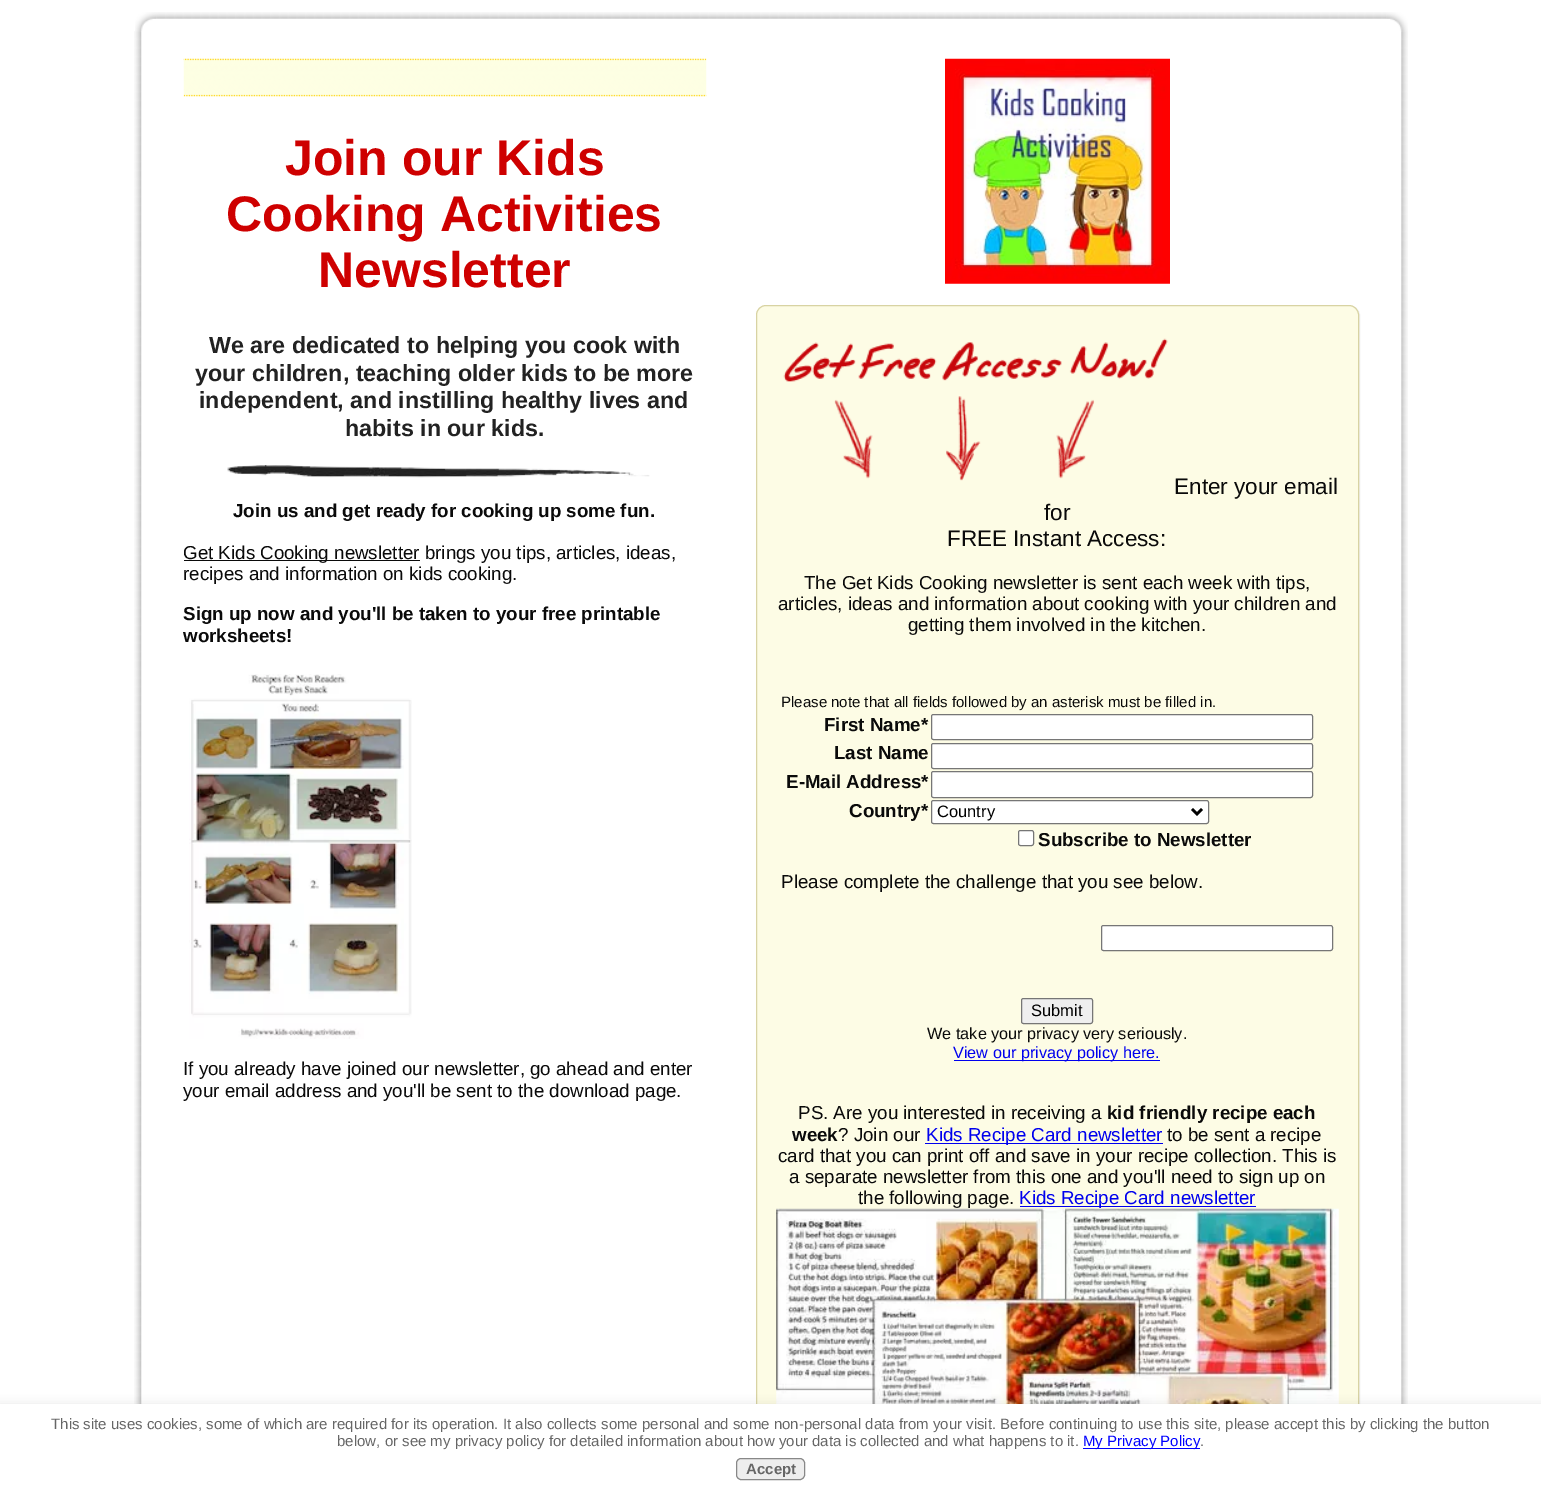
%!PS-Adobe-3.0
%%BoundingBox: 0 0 1541 1491
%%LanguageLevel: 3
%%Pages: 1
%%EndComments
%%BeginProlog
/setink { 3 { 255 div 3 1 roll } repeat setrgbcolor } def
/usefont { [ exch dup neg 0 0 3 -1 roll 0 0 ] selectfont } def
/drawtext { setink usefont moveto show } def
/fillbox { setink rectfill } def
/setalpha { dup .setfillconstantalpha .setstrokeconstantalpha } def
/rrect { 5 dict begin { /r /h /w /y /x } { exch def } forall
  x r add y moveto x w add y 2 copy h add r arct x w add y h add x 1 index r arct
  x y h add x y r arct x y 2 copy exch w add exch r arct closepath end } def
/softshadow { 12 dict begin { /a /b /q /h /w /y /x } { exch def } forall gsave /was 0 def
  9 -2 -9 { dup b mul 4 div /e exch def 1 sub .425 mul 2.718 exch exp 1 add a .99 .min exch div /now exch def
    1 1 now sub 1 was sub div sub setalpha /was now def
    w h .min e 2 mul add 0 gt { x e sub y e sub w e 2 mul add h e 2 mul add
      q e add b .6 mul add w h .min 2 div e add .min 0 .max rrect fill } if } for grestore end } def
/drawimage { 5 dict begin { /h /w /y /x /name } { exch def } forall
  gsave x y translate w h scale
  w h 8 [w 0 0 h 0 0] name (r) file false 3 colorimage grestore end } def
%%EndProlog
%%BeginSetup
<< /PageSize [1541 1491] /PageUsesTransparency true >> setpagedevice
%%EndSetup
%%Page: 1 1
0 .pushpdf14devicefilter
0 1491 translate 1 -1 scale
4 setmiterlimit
0 0 1541 1491 255 255 255 fillbox
(assets/img1.rgb) 135 12 22 20 drawimage
(assets/img2.rgb) 156 12 1231 7 drawimage
(assets/img3.rgb) 1386 12 22 20 drawimage
(assets/img4.rgb) 134 31 8 1373 drawimage
(assets/img5.rgb) 183 58 524 39 drawimage
(Join our Kids) 285 175 /LiberationSans-Bold 50 206 0 0 drawtext
(Cooking Activities) 226 231 /LiberationSans-Bold 50 206 0 0 drawtext
(Newsletter) 318 287 /LiberationSans-Bold 50 206 0 0 drawtext
(We are dedicated to helping you cook with) 209 353 /LiberationSans-Bold 23.3 34 34 34 drawtext
(your children, teaching older kids to be more) 195 381 /LiberationSans-Bold 23.3 34 34 34 drawtext
(independent, and instilling healthy lives and) 199 408 /LiberationSans-Bold 23.3 34 34 34 drawtext
(habits in our kids.) 345 436 /LiberationSans-Bold 23.3 34 34 34 drawtext
(assets/img6.rgb) 227 465 423 13 drawimage
(Join us and get ready for cooking up some fun.) 233 517 /LiberationSans-Bold 18.75 10 10 10 drawtext
184 560 236 1 10 10 10 fillbox
(Get Kids Cooking newsletter brings you tips, articles, ideas,) 183 559 /LiberationSans-Regular 18.75 10 10 10 drawtext
(recipes and information on kids cooking.) 183 580 /LiberationSans-Regular 18.75 10 10 10 drawtext
(Sign up now and you'll be taken to your free printable) 183 620 /LiberationSans-Bold 18.75 10 10 10 drawtext
(worksheets!) 183 642 /LiberationSans-Bold 18.75 10 10 10 drawtext
(assets/img7.rgb) 189 674 223 365 drawimage
(If you already have joined our newsletter, go ahead and enter) 183 1075 /LiberationSans-Regular 18.75 10 10 10 drawtext
(your email address and you'll be sent to the download page.) 183 1097 /LiberationSans-Regular 18.75 10 10 10 drawtext
(assets/img8.rgb) 945 58 225 226 drawimage
238 238 238 setink
758 306 602 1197 10 0.5 1 softshadow
253 252 229 setink
756.5 305.5 602 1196 9.5 rrect gsave fill grestore
216 211 163 setink
stroke
(assets/img9.rgb) 783 338 385 143 drawimage
(Enter your email) 1174 494 /LiberationSans-Regular 22.5 10 10 10 drawtext
(for) 1044 520 /LiberationSans-Regular 22.5 10 10 10 drawtext
(FREE Instant Access:) 947 546 /LiberationSans-Regular 22.5 10 10 10 drawtext
(The Get Kids Cooking newsletter is sent each week with tips,) 804 589 /LiberationSans-Regular 18.75 10 10 10 drawtext
(articles, ideas and information about cooking with your children and) 778 610 /LiberationSans-Regular 18.75 10 10 10 drawtext
(getting them involved in the kitchen.) 908 631 /LiberationSans-Regular 18.75 10 10 10 drawtext
(Please note that all fields followed by an asterisk must be filled in.) 781 707 /LiberationSans-Regular 15 10 10 10 drawtext
(First Name*) 824 731 /LiberationSans-Bold 18.75 10 10 10 drawtext
255 255 255 setink
931.5 714.5 381 25 2 rrect gsave fill grestore
118 118 118 setink
stroke
(Last Name) 834 759 /LiberationSans-Bold 18.75 10 10 10 drawtext
255 255 255 setink
931.5 743.5 381 25 2 rrect gsave fill grestore
118 118 118 setink
stroke
(E-Mail Address*) 786 788 /LiberationSans-Bold 18.75 10 10 10 drawtext
255 255 255 setink
931.5 771.5 381 26 2 rrect gsave fill grestore
118 118 118 setink
stroke
(Country*) 849 817 /LiberationSans-Bold 18.75 10 10 10 drawtext
255 255 255 setink
931.5 800.5 277 23 2 rrect gsave fill grestore
118 118 118 setink
stroke
0 0 0 setink
2.5 setlinewidth
1192 809 moveto 1197 814 lineto 1202 809 lineto stroke
(Country) 937 817 /LiberationSans-Regular 16.5 0 0 0 drawtext
255 255 255 setink
1018.5 830.5 15 15 2 rrect gsave fill grestore
118 118 118 setink
1 setlinewidth
stroke
(Subscribe to Newsletter) 1038 846 /LiberationSans-Bold 18.75 10 10 10 drawtext
(Please complete the challenge that you see below.) 781 888 /LiberationSans-Regular 18.75 10 10 10 drawtext
255 255 255 setink
1101.5 925.5 231 25 2 rrect gsave fill grestore
118 118 118 setink
stroke
239 239 239 setink
1021.5 998.5 71 25 2 rrect gsave fill grestore
118 118 118 setink
stroke
(Submit) 1031 1016 /LiberationSans-Regular 16.5 0 0 0 drawtext
(We take your privacy very seriously.) 927 1039 /LiberationSans-Regular 16.25 10 10 10 drawtext
954 1060 206 1 0 0 238 fillbox
(View our privacy policy here.) 953 1058 /LiberationSans-Regular 16.25 0 0 238 drawtext
(PS. Are you interested in receiving a) 798 1119 /LiberationSans-Regular 18.75 10 10 10 drawtext
(kid friendly recipe each) 1107 1119 /LiberationSans-Bold 18.75 10 10 10 drawtext
(week) 792 1141 /LiberationSans-Bold 18.75 10 10 10 drawtext
(? Join our) 838 1141 /LiberationSans-Regular 18.75 10 10 10 drawtext
925 1143 238 1 0 0 238 fillbox
(Kids Recipe Card newsletter) 926 1141 /LiberationSans-Regular 18.75 0 0 238 drawtext
(to be sent a recipe) 1167 1141 /LiberationSans-Regular 18.75 10 10 10 drawtext
(card that you can print off and save in your recipe collection. This is) 778 1162 /LiberationSans-Regular 18.75 10 10 10 drawtext
(a separate newsletter from this one and you'll need to sign up on) 789 1183 /LiberationSans-Regular 18.75 10 10 10 drawtext
(the following page.) 858 1204 /LiberationSans-Regular 18.75 10 10 10 drawtext
1020 1206 236 1 0 0 238 fillbox
(Kids Recipe Card newsletter) 1019 1204 /LiberationSans-Regular 18.75 0 0 238 drawtext
(assets/img10.rgb) 776 1208 563 196 drawimage
(assets/img11.rgb) 1401 31 7 1373 drawimage
0 0 0 setink
-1 1408 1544 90 0 6 0.2 softshadow
0 1404 1541 87 255 255 255 fillbox
(This site uses cookies, some of which are required for its operation. It also collects some personal and some non-personal data from your visit. Before continuing to use this site, please accept this by clicking the button) 51 1429 /LiberationSans-Regular 15 102 102 102 drawtext
(below, or see my privacy policy for detailed information about how your data is collected and what happens to it.) 337 1446 /LiberationSans-Regular 15 102 102 102 drawtext
1083 1448 117 1 0 0 255 fillbox
(My Privacy Policy) 1083 1446 /LiberationSans-Regular 15 0 0 255 drawtext
(.) 1200 1446 /LiberationSans-Regular 15 102 102 102 drawtext
238 238 238 setink
736.5 1458.5 68 21 4.5 rrect gsave fill grestore
136 136 136 setink
stroke
(Accept) 746 1474 /LiberationSans-Bold 15 102 102 102 drawtext
.poppdf14devicefilter showpage
%%EOF
